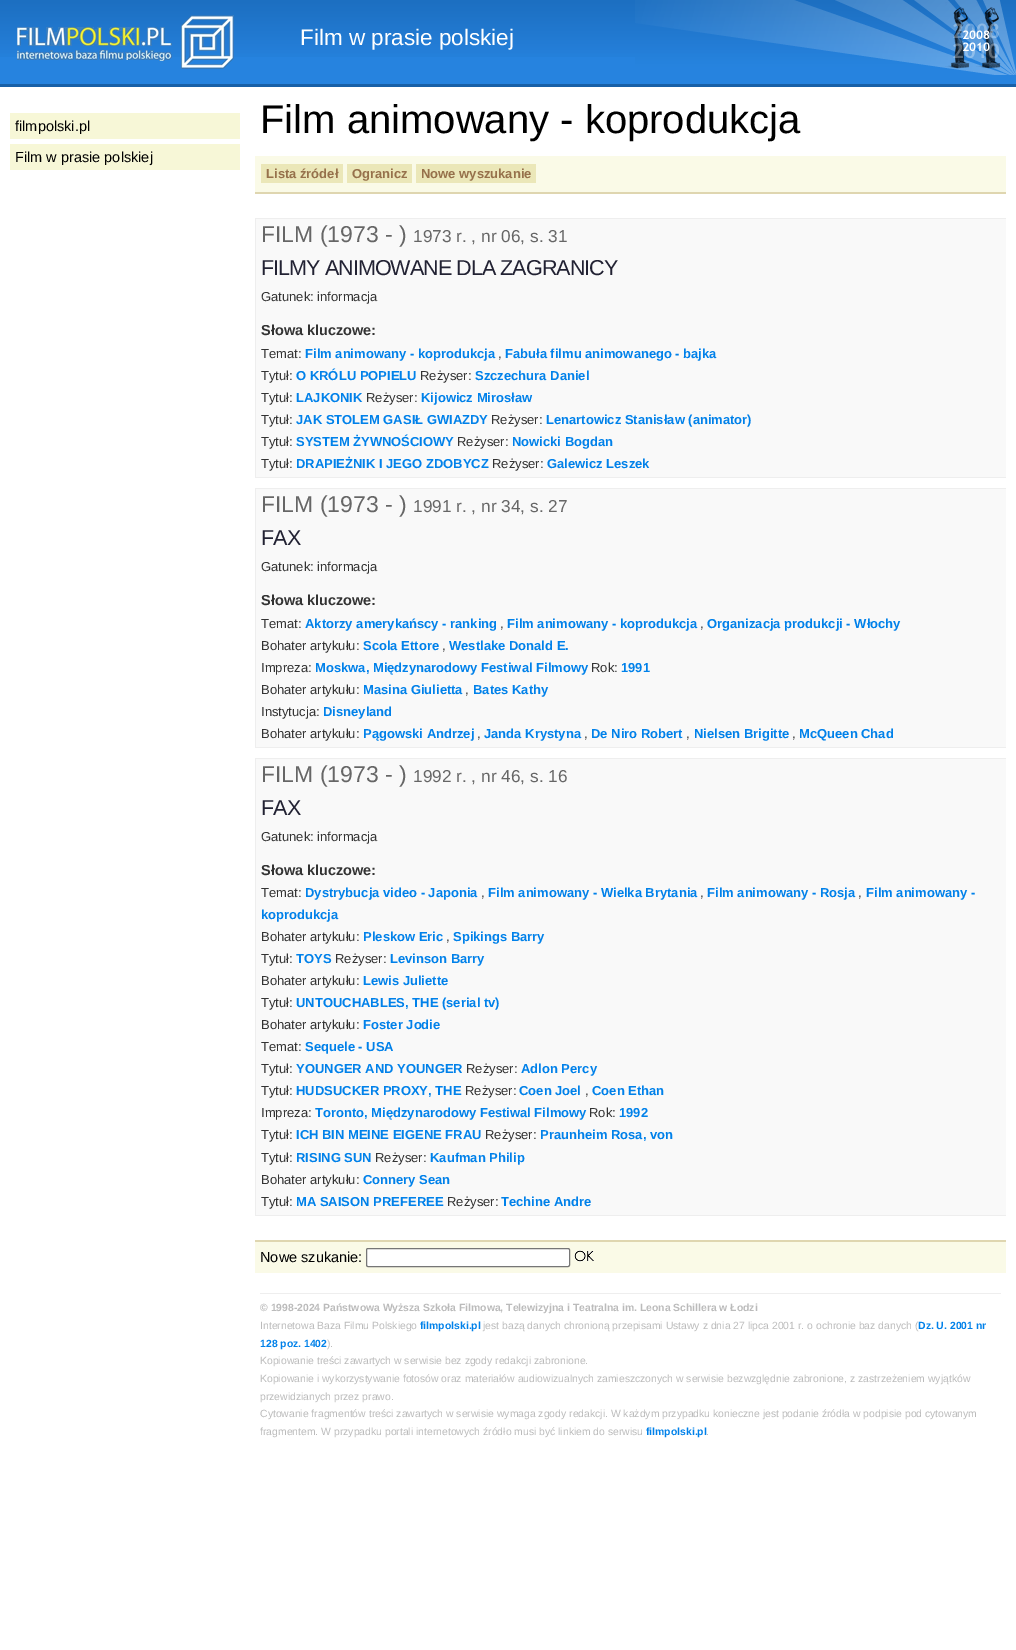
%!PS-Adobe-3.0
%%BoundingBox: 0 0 1016 1650
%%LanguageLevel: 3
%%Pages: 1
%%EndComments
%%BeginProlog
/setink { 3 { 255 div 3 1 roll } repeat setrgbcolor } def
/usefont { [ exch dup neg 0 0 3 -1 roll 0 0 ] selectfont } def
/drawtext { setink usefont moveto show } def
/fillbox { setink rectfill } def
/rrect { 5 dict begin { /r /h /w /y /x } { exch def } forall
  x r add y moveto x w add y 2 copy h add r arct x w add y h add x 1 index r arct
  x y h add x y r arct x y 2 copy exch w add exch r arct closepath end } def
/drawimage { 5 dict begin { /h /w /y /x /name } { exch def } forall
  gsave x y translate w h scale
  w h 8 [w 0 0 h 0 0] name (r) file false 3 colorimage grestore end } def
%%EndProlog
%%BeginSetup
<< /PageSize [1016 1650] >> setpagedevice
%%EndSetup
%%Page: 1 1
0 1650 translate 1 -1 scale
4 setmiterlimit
0 0 1016 1650 255 255 255 fillbox
0 57 1016 27 38 131 223 fillbox
(assets/img1.rgb) 0 0 635 57 drawimage
(assets/img2.rgb) 635 0 381 75 drawimage
(assets/img3.rgb) 17 15 217 54 drawimage
(Film w prasie polskiej) 300 45 /LiberationSans-Regular 22.5 255 255 255 drawtext
10 113 230 26 247 247 215 fillbox
(filmpolski.pl) 15 131 /LiberationSans-Regular 14.5 0 0 0 drawtext
10 144 230 26 247 247 215 fillbox
(Film w prasie polskiej) 15 162 /LiberationSans-Regular 14.5 0 0 0 drawtext
0 84 1016 3 24 96 167 fillbox
(Film animowany - koprodukcja) 260 133 /LiberationSans-Regular 40 0 0 0 drawtext
255 156 751 36 250 250 231 fillbox
255 192 751 2 223 214 176 fillbox
261 164 82 19 235 231 184 fillbox
(Lista źródeł) 266 178 /LiberationSans-Bold 13 150 113 75 drawtext
347 164 65 19 235 231 184 fillbox
(Ogranicz) 352 178 /LiberationSans-Bold 13 150 113 75 drawtext
416 164 120 19 235 231 184 fillbox
(Nowe wyszukanie) 421 178 /LiberationSans-Bold 13 150 113 75 drawtext
256 219 750 258 249 249 249 fillbox
255 218 751 1 238 238 238 fillbox
255 477 751 1 238 238 238 fillbox
255 218 1 260 238 238 238 fillbox
(FILM \(1973 - \)) 261 242 /LiberationSans-Regular 23 102 102 102 drawtext
(1973 r. , nr 06, s. 31) 413 242 /LiberationSans-Regular 17.25 102 102 102 drawtext
/LiberationSans-Regular 21.6 usefont
34 34 51 setink
261 275 moveto -1 0 (FILMY ANIMOWANE DLA ZAGRANICY) ashow
(Gatunek: informacja) 261 301 /LiberationSans-Regular 13 51 51 51 drawtext
(Słowa kluczowe:) 261 335 /LiberationSans-Bold 14.5 51 51 51 drawtext
(Temat:) 261 358 /LiberationSans-Regular 13 51 51 51 drawtext
(Film animowany - koprodukcja) 305 358 /LiberationSans-Bold 13 0 129 234 drawtext
(,) 498 358 /LiberationSans-Regular 13 51 51 51 drawtext
(Fabuła filmu animowanego - bajka) 505 358 /LiberationSans-Bold 13 0 129 234 drawtext
(Tytuł:) 261 380 /LiberationSans-Regular 13 51 51 51 drawtext
(O KRÓLU POPIELU) 296 380 /LiberationSans-Bold 13 0 129 234 drawtext
(Reżyser:) 420 380 /LiberationSans-Regular 13 51 51 51 drawtext
(Szczechura Daniel) 475 380 /LiberationSans-Bold 13 0 129 234 drawtext
(Tytuł:) 261 402 /LiberationSans-Regular 13 51 51 51 drawtext
(LAJKONIK) 296 402 /LiberationSans-Bold 13 0 129 234 drawtext
(Reżyser:) 366 402 /LiberationSans-Regular 13 51 51 51 drawtext
(Kijowicz Mirosław) 421 402 /LiberationSans-Bold 13 0 129 234 drawtext
(Tytuł:) 261 424 /LiberationSans-Regular 13 51 51 51 drawtext
(JAK STOLEM GASIŁ GWIAZDY) 296 424 /LiberationSans-Bold 13 0 129 234 drawtext
(Reżyser:) 491 424 /LiberationSans-Regular 13 51 51 51 drawtext
(Lenartowicz Stanisław \(animator\)) 546 424 /LiberationSans-Bold 13 0 129 234 drawtext
(Tytuł:) 261 446 /LiberationSans-Regular 13 51 51 51 drawtext
(SYSTEM ŻYWNOŚCIOWY) 296 446 /LiberationSans-Bold 13 0 129 234 drawtext
(Reżyser:) 457 446 /LiberationSans-Regular 13 51 51 51 drawtext
(Nowicki Bogdan) 512 446 /LiberationSans-Bold 13 0 129 234 drawtext
(Tytuł:) 261 468 /LiberationSans-Regular 13 51 51 51 drawtext
(DRAPIEŻNIK I JEGO ZDOBYCZ) 296 468 /LiberationSans-Bold 13 0 129 234 drawtext
(Reżyser:) 492 468 /LiberationSans-Regular 13 51 51 51 drawtext
(Galewicz Leszek) 547 468 /LiberationSans-Bold 13 0 129 234 drawtext
256 489 750 258 249 249 249 fillbox
255 488 751 1 238 238 238 fillbox
255 747 751 1 238 238 238 fillbox
255 488 1 260 238 238 238 fillbox
(FILM \(1973 - \)) 261 512 /LiberationSans-Regular 23 102 102 102 drawtext
(1991 r. , nr 34, s. 27) 413 512 /LiberationSans-Regular 17.25 102 102 102 drawtext
/LiberationSans-Regular 21.6 usefont
34 34 51 setink
261 545 moveto -1 0 (FAX) ashow
(Gatunek: informacja) 261 571 /LiberationSans-Regular 13 51 51 51 drawtext
(Słowa kluczowe:) 261 605 /LiberationSans-Bold 14.5 51 51 51 drawtext
(Temat:) 261 628 /LiberationSans-Regular 13 51 51 51 drawtext
(Aktorzy amerykańscy - ranking) 305 628 /LiberationSans-Bold 13 0 129 234 drawtext
(,) 500 628 /LiberationSans-Regular 13 51 51 51 drawtext
(Film animowany - koprodukcja) 507 628 /LiberationSans-Bold 13 0 129 234 drawtext
(,) 700 628 /LiberationSans-Regular 13 51 51 51 drawtext
(Organizacja produkcji - Włochy) 707 628 /LiberationSans-Bold 13 0 129 234 drawtext
(Bohater artykułu:) 261 650 /LiberationSans-Regular 13 51 51 51 drawtext
(Scola Ettore) 363 650 /LiberationSans-Bold 13 0 129 234 drawtext
(,) 442 650 /LiberationSans-Regular 13 51 51 51 drawtext
(Westlake Donald E.) 449 650 /LiberationSans-Bold 13 0 129 234 drawtext
(Impreza:) 261 672 /LiberationSans-Regular 13 51 51 51 drawtext
(Moskwa, Międzynarodowy Festiwal Filmowy) 315 672 /LiberationSans-Bold 13 0 129 234 drawtext
(Rok:) 591 672 /LiberationSans-Regular 13 51 51 51 drawtext
(1991) 621 672 /LiberationSans-Bold 13 0 129 234 drawtext
(Bohater artykułu:) 261 694 /LiberationSans-Regular 13 51 51 51 drawtext
(Masina Giulietta) 363 694 /LiberationSans-Bold 13 0 129 234 drawtext
(,) 465 694 /LiberationSans-Regular 13 51 51 51 drawtext
(Bates Kathy) 473 694 /LiberationSans-Bold 13 0 129 234 drawtext
(Instytucja:) 261 716 /LiberationSans-Regular 13 51 51 51 drawtext
(Disneyland) 323 716 /LiberationSans-Bold 13 0 129 234 drawtext
(Bohater artykułu:) 261 738 /LiberationSans-Regular 13 51 51 51 drawtext
(Pągowski Andrzej) 363 738 /LiberationSans-Bold 13 0 129 234 drawtext
(,) 477 738 /LiberationSans-Regular 13 51 51 51 drawtext
(Janda Krystyna) 484 738 /LiberationSans-Bold 13 0 129 234 drawtext
(,) 584 738 /LiberationSans-Regular 13 51 51 51 drawtext
(De Niro Robert) 591 738 /LiberationSans-Bold 13 0 129 234 drawtext
(,) 686 738 /LiberationSans-Regular 13 51 51 51 drawtext
(Nielsen Brigitte) 694 738 /LiberationSans-Bold 13 0 129 234 drawtext
(,) 792 738 /LiberationSans-Regular 13 51 51 51 drawtext
(McQueen Chad) 799 738 /LiberationSans-Bold 13 0 129 234 drawtext
256 759 750 456 249 249 249 fillbox
255 758 751 1 238 238 238 fillbox
255 1215 751 1 238 238 238 fillbox
255 758 1 458 238 238 238 fillbox
(FILM \(1973 - \)) 261 782 /LiberationSans-Regular 23 102 102 102 drawtext
(1992 r. , nr 46, s. 16) 413 782 /LiberationSans-Regular 17.25 102 102 102 drawtext
/LiberationSans-Regular 21.6 usefont
34 34 51 setink
261 815 moveto -1 0 (FAX) ashow
(Gatunek: informacja) 261 841 /LiberationSans-Regular 13 51 51 51 drawtext
(Słowa kluczowe:) 261 875 /LiberationSans-Bold 14.5 51 51 51 drawtext
(Temat:) 261 897 /LiberationSans-Regular 13 51 51 51 drawtext
(Dystrybucja video - Japonia) 305 897 /LiberationSans-Bold 13 0 129 234 drawtext
(,) 481 897 /LiberationSans-Regular 13 51 51 51 drawtext
(Film animowany - Wielka Brytania) 488 897 /LiberationSans-Bold 13 0 129 234 drawtext
(,) 700 897 /LiberationSans-Regular 13 51 51 51 drawtext
(Film animowany - Rosja) 707 897 /LiberationSans-Bold 13 0 129 234 drawtext
(,) 858 897 /LiberationSans-Regular 13 51 51 51 drawtext
(Film animowany -) 866 897 /LiberationSans-Bold 13 0 129 234 drawtext
(koprodukcja) 261 919 /LiberationSans-Bold 13 0 129 234 drawtext
(Bohater artykułu:) 261 941 /LiberationSans-Regular 13 51 51 51 drawtext
(Pleskow Eric) 363 941 /LiberationSans-Bold 13 0 129 234 drawtext
(,) 446 941 /LiberationSans-Regular 13 51 51 51 drawtext
(Spikings Barry) 453 941 /LiberationSans-Bold 13 0 129 234 drawtext
(Tytuł:) 261 963 /LiberationSans-Regular 13 51 51 51 drawtext
(TOYS) 296 963 /LiberationSans-Bold 13 0 129 234 drawtext
(Reżyser:) 335 963 /LiberationSans-Regular 13 51 51 51 drawtext
(Levinson Barry) 390 963 /LiberationSans-Bold 13 0 129 234 drawtext
(Bohater artykułu:) 261 985 /LiberationSans-Regular 13 51 51 51 drawtext
(Lewis Juliette) 363 985 /LiberationSans-Bold 13 0 129 234 drawtext
(Tytuł:) 261 1007 /LiberationSans-Regular 13 51 51 51 drawtext
(UNTOUCHABLES, THE \(serial tv\)) 296 1007 /LiberationSans-Bold 13 0 129 234 drawtext
(Bohater artykułu:) 261 1029 /LiberationSans-Regular 13 51 51 51 drawtext
(Foster Jodie) 363 1029 /LiberationSans-Bold 13 0 129 234 drawtext
(Temat:) 261 1051 /LiberationSans-Regular 13 51 51 51 drawtext
(Sequele - USA) 305 1051 /LiberationSans-Bold 13 0 129 234 drawtext
(Tytuł:) 261 1073 /LiberationSans-Regular 13 51 51 51 drawtext
(YOUNGER AND YOUNGER) 296 1073 /LiberationSans-Bold 13 0 129 234 drawtext
(Reżyser:) 466 1073 /LiberationSans-Regular 13 51 51 51 drawtext
(Adlon Percy) 521 1073 /LiberationSans-Bold 13 0 129 234 drawtext
(Tytuł:) 261 1095 /LiberationSans-Regular 13 51 51 51 drawtext
(HUDSUCKER PROXY, THE) 296 1095 /LiberationSans-Bold 13 0 129 234 drawtext
(Reżyser:) 465 1095 /LiberationSans-Regular 13 51 51 51 drawtext
(Coen Joel) 519 1095 /LiberationSans-Bold 13 0 129 234 drawtext
(,) 585 1095 /LiberationSans-Regular 13 51 51 51 drawtext
(Coen Ethan) 592 1095 /LiberationSans-Bold 13 0 129 234 drawtext
(Impreza:) 261 1117 /LiberationSans-Regular 13 51 51 51 drawtext
(Toronto, Międzynarodowy Festiwal Filmowy) 315 1117 /LiberationSans-Bold 13 0 129 234 drawtext
(Rok:) 589 1117 /LiberationSans-Regular 13 51 51 51 drawtext
(1992) 619 1117 /LiberationSans-Bold 13 0 129 234 drawtext
(Tytuł:) 261 1139 /LiberationSans-Regular 13 51 51 51 drawtext
(ICH BIN MEINE EIGENE FRAU) 296 1139 /LiberationSans-Bold 13 0 129 234 drawtext
(Reżyser:) 485 1139 /LiberationSans-Regular 13 51 51 51 drawtext
(Praunheim Rosa, von) 540 1139 /LiberationSans-Bold 13 0 129 234 drawtext
(Tytuł:) 261 1162 /LiberationSans-Regular 13 51 51 51 drawtext
(RISING SUN) 296 1162 /LiberationSans-Bold 13 0 129 234 drawtext
(Reżyser:) 375 1162 /LiberationSans-Regular 13 51 51 51 drawtext
(Kaufman Philip) 430 1162 /LiberationSans-Bold 13 0 129 234 drawtext
(Bohater artykułu:) 261 1184 /LiberationSans-Regular 13 51 51 51 drawtext
(Connery Sean) 363 1184 /LiberationSans-Bold 13 0 129 234 drawtext
(Tytuł:) 261 1206 /LiberationSans-Regular 13 51 51 51 drawtext
(MA SAISON PREFEREE) 296 1206 /LiberationSans-Bold 13 0 129 234 drawtext
(Reżyser:) 447 1206 /LiberationSans-Regular 13 51 51 51 drawtext
(Techine Andre) 501 1206 /LiberationSans-Bold 13 0 129 234 drawtext
255 1242 751 31 250 250 231 fillbox
255 1240 751 2 223 214 176 fillbox
(Nowe szukanie:) 260 1262 /LiberationSans-Regular 14.5 0 0 0 drawtext
255 255 255 setink
366.5 1248.5 203 18 1.5 rrect gsave fill grestore
118 118 118 setink
stroke
(assets/img4.rgb) 574 1250 20 12 drawimage
260 1293 741 1 238 238 238 fillbox
(© 1998-2024 Państwowa Wyższa Szkoła Filmowa, Telewizyjna i Teatralna im. Leona Schillera w Łodzi) 260 1311 /LiberationSans-Bold 10.4 187 187 187 drawtext
(Internetowa Baza Filmu Polskiego) 260 1329 /LiberationSans-Regular 10.4 187 187 187 drawtext
(filmpolski.pl) 420 1329 /LiberationSans-Bold 10.4 0 129 234 drawtext
(jest bazą danych chronioną przepisami Ustawy z dnia 27 lipca 2001 r. o ochronie baz danych \() 483 1329 /LiberationSans-Regular 10.4 187 187 187 drawtext
(Dz. U. 2001 nr) 918 1329 /LiberationSans-Bold 10.4 0 129 234 drawtext
(128 poz. 1402) 260 1347 /LiberationSans-Bold 10.4 0 129 234 drawtext
(\).) 327 1347 /LiberationSans-Regular 10.4 187 187 187 drawtext
(Kopiowanie treści zawartych w serwisie bez zgody redakcji zabronione.) 260 1364 /LiberationSans-Regular 10.4 187 187 187 drawtext
(Kopiowanie i wykorzystywanie fotosów oraz materiałów audiowizualnych zamieszczonych w serwisie bezwzględnie zabronione, z zastrzeżeniem wyjątków) 260 1382 /LiberationSans-Regular 10.4 187 187 187 drawtext
(przewidzianych przez prawo.) 260 1400 /LiberationSans-Regular 10.4 187 187 187 drawtext
(Cytowanie fragmentów treści zawartych w serwisie wymaga zgody redakcji. W każdym przypadku konieczne jest podanie źródła w podpisie pod cytowanym) 260 1417 /LiberationSans-Regular 10.4 187 187 187 drawtext
(fragmentem. W przypadku portali internetowych źródło musi być linkiem do serwisu) 260 1435 /LiberationSans-Regular 10.4 187 187 187 drawtext
(filmpolski.pl) 646 1435 /LiberationSans-Bold 10.4 0 129 234 drawtext
(.) 706 1435 /LiberationSans-Regular 10.4 187 187 187 drawtext
showpage
%%EOF
